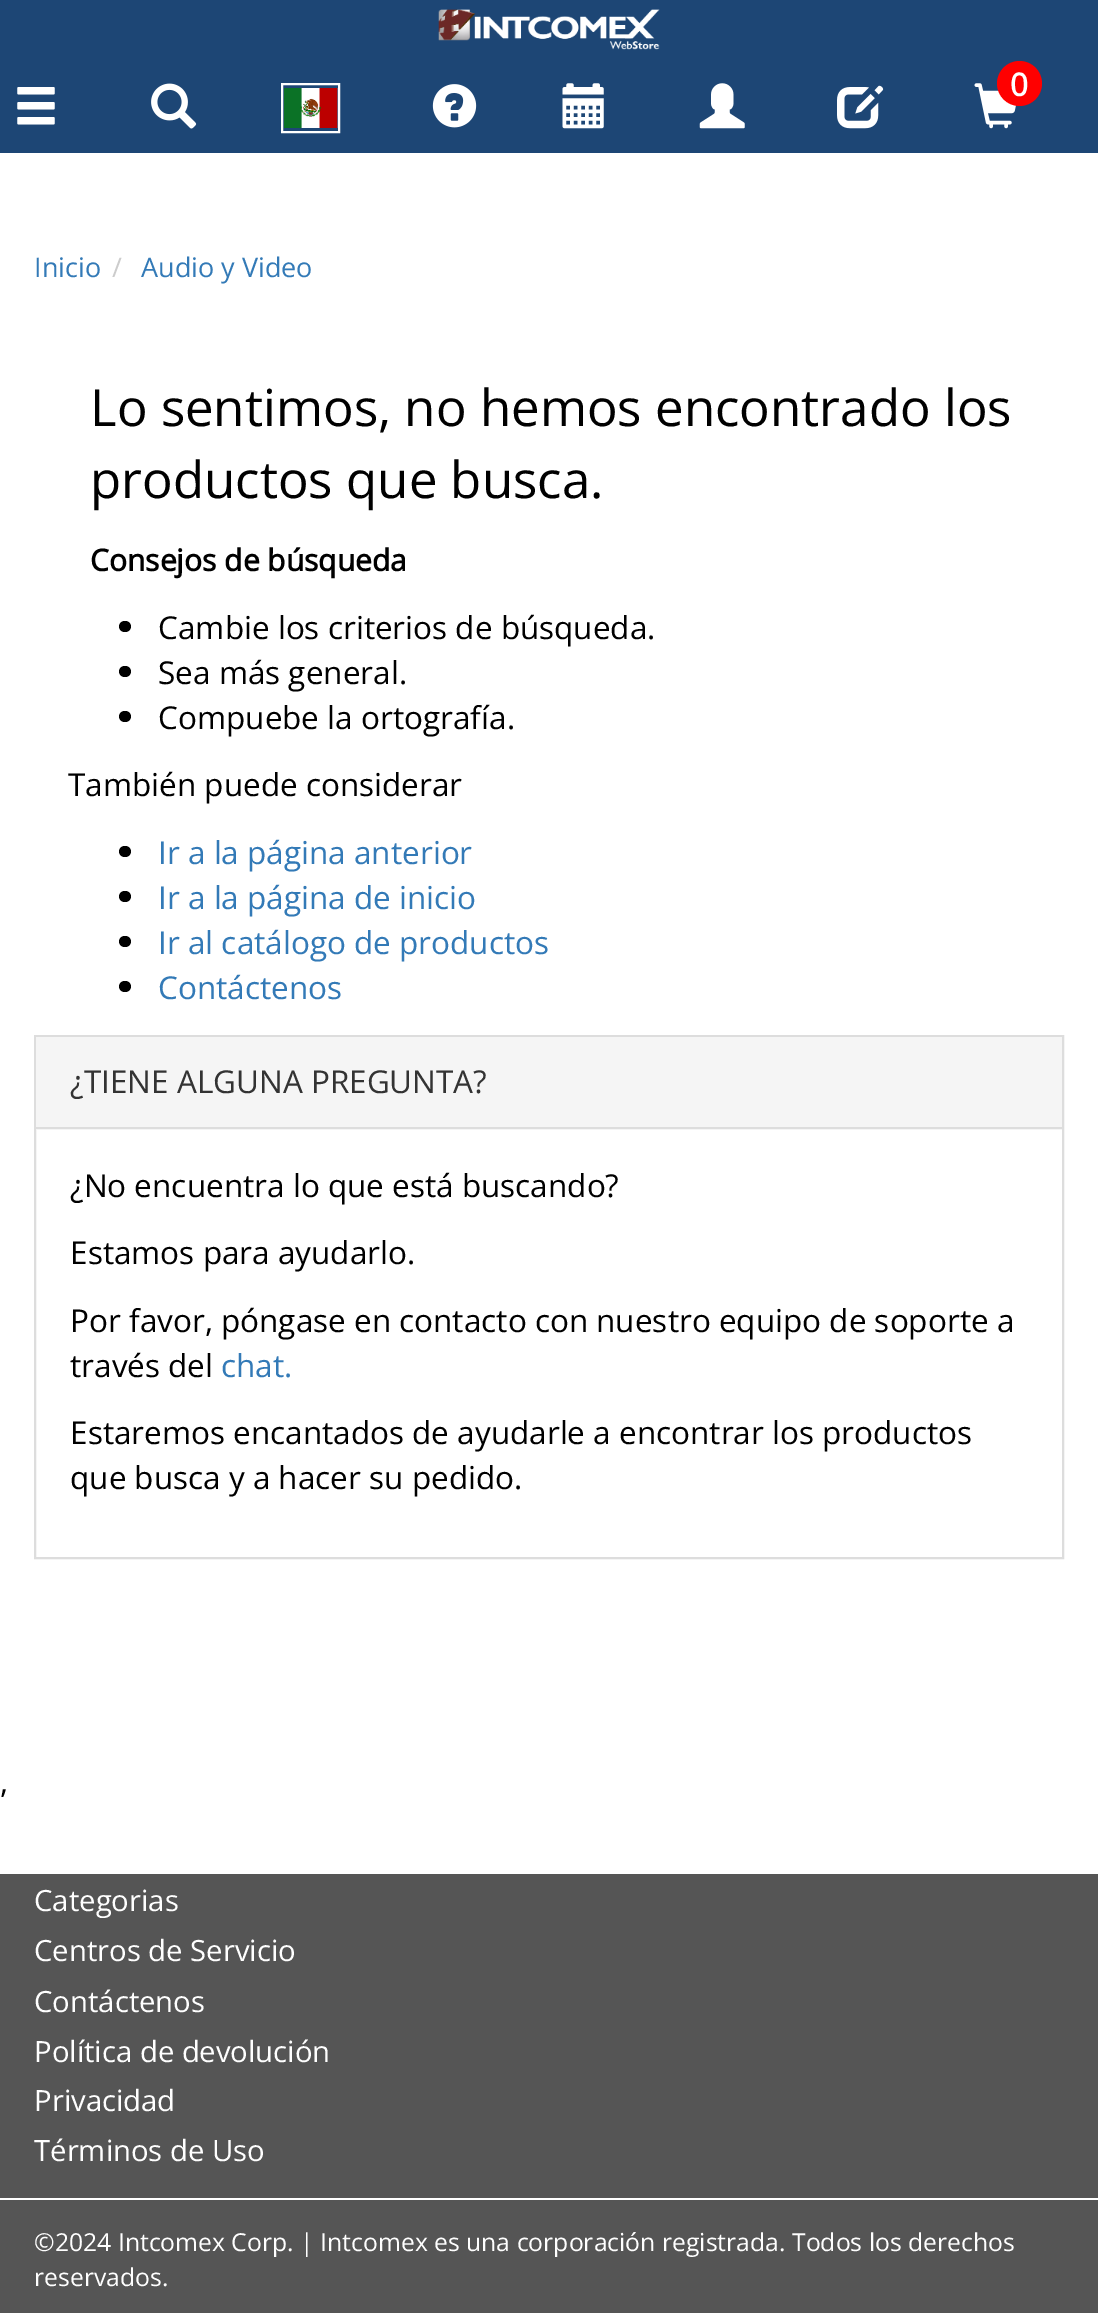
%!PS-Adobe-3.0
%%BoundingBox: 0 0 1098 2313
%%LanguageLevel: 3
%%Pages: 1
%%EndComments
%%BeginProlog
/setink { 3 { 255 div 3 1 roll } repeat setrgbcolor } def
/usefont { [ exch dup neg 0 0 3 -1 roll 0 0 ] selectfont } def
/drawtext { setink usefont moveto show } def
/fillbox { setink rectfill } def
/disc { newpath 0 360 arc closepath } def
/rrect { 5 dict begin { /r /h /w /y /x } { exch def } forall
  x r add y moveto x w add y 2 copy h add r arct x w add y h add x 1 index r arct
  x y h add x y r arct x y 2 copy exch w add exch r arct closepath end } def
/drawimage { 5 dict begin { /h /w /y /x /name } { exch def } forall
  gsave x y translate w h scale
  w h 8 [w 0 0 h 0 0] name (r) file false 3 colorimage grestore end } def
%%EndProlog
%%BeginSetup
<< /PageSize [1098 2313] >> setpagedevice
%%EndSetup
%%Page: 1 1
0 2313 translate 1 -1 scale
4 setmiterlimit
0 0 1098 2313 255 255 255 fillbox
0 0 1098 153 29 70 117 fillbox
(assets/img1.rgb) 438 9 222 41 drawimage
(assets/img2.rgb) 17 87 38 38 drawimage
(assets/img3.rgb) 151 83 46 46 drawimage
(assets/img4.rgb) 284 88 54 40 drawimage
255 255 255 setink
2 setlinewidth
282 84 57 48 rectstroke
(assets/img5.rgb) 432 84 45 44 drawimage
(assets/img6.rgb) 562 83 42 46 drawimage
(assets/img7.rgb) 699 83 46 46 drawimage
(assets/img8.rgb) 837 85 47 44 drawimage
(assets/img9.rgb) 974 83 42 46 drawimage
255 0 0 setink
1019.5 83.5 22.5 disc fill
(0) 1010 96 /OpenSans-Bold 31.5 255 255 255 drawtext
(Inicio) 34 277 /OpenSans-Regular 27 51 122 183 drawtext
(/) 112 277 /OpenSans-Regular 27 204 204 204 drawtext
(Audio y Video) 141 277 /OpenSans-Regular 27 51 122 183 drawtext
(Lo sentimos, no hemos encontrado los) 90 426 /OpenSans-Regular 51 0 0 0 drawtext
(productos que busca.) 90 498 /OpenSans-Regular 51 0 0 0 drawtext
(Consejos de búsqueda) 90 571 /OpenSans-Bold 30 0 0 0 drawtext
119 621 12 11 5.5 rrect fill
(Cambie los criterios de búsqueda.) 158 639 /OpenSans-Regular 31.5 0 0 0 drawtext
119 666 12 11 5.5 rrect fill
(Sea más general.) 158 684 /OpenSans-Regular 31.5 0 0 0 drawtext
119 711 12 11 5.5 rrect fill
(Compuebe la ortografía.) 158 729 /OpenSans-Regular 31.5 0 0 0 drawtext
(También puede considerar) 68 796 /OpenSans-Regular 31.5 0 0 0 drawtext
119 846 12 11 5.5 rrect fill
(Ir a la página anterior) 158 864 /OpenSans-Regular 31.5 51 122 183 drawtext
0 0 0 setink
119 891 12 11 5.5 rrect fill
(Ir a la página de inicio) 158 909 /OpenSans-Regular 31.5 51 122 183 drawtext
0 0 0 setink
119 936 12 11 5.5 rrect fill
(Ir al catálogo de productos) 158 954 /OpenSans-Regular 31.5 51 122 183 drawtext
0 0 0 setink
119 981 12 11 5.5 rrect fill
(Contáctenos) 158 999 /OpenSans-Regular 31.5 51 122 183 drawtext
221 221 221 setink
35 1036 1028 522 rectstroke
36 1037 1026 93 245 245 245 fillbox
36 1127 1026 2 221 221 221 fillbox
(¿TIENE ALGUNA PREGUNTA?) 70 1093 /OpenSans-Regular 31.5 51 51 51 drawtext
(¿No encuentra lo que está buscando?) 70 1197 /OpenSans-Regular 31.5 0 0 0 drawtext
(Estamos para ayudarlo.) 70 1264 /OpenSans-Regular 31.5 0 0 0 drawtext
(Por favor, póngase en contacto con nuestro equipo de soporte a) 70 1332 /OpenSans-Regular 31.5 0 0 0 drawtext
(través del) 70 1377 /OpenSans-Regular 31.5 0 0 0 drawtext
(chat.) 221 1377 /OpenSans-Regular 31.5 51 122 183 drawtext
(Estaremos encantados de ayudarle a encontrar los productos) 70 1444 /OpenSans-Regular 31.5 0 0 0 drawtext
(que busca y a hacer su pedido.) 70 1489 /OpenSans-Regular 31.5 0 0 0 drawtext
(,) 0 1793 /OpenSans-Regular 31.5 0 0 0 drawtext
0 1874 1098 439 85 85 85 fillbox
(Categorias) 34 1911 /OpenSans-Regular 29.25 255 255 255 drawtext
(Centros de Servicio) 34 1961 /OpenSans-Regular 29.25 255 255 255 drawtext
(Contáctenos) 34 2012 /OpenSans-Regular 29.25 255 255 255 drawtext
(Política de devolución) 34 2062 /OpenSans-Regular 29.25 255 255 255 drawtext
(Privacidad) 34 2111 /OpenSans-Regular 29.25 255 255 255 drawtext
(Términos de Uso) 34 2161 /OpenSans-Regular 29.25 255 255 255 drawtext
0 2198 1098 2 255 255 255 fillbox
(©2024 Intcomex Corp. | Intcomex es una corporación registrada. Todos los derechos) 34 2251 /OpenSans-Regular 24.75 255 255 255 drawtext
(reservados.) 34 2286 /OpenSans-Regular 24.75 255 255 255 drawtext
showpage
%%EOF
